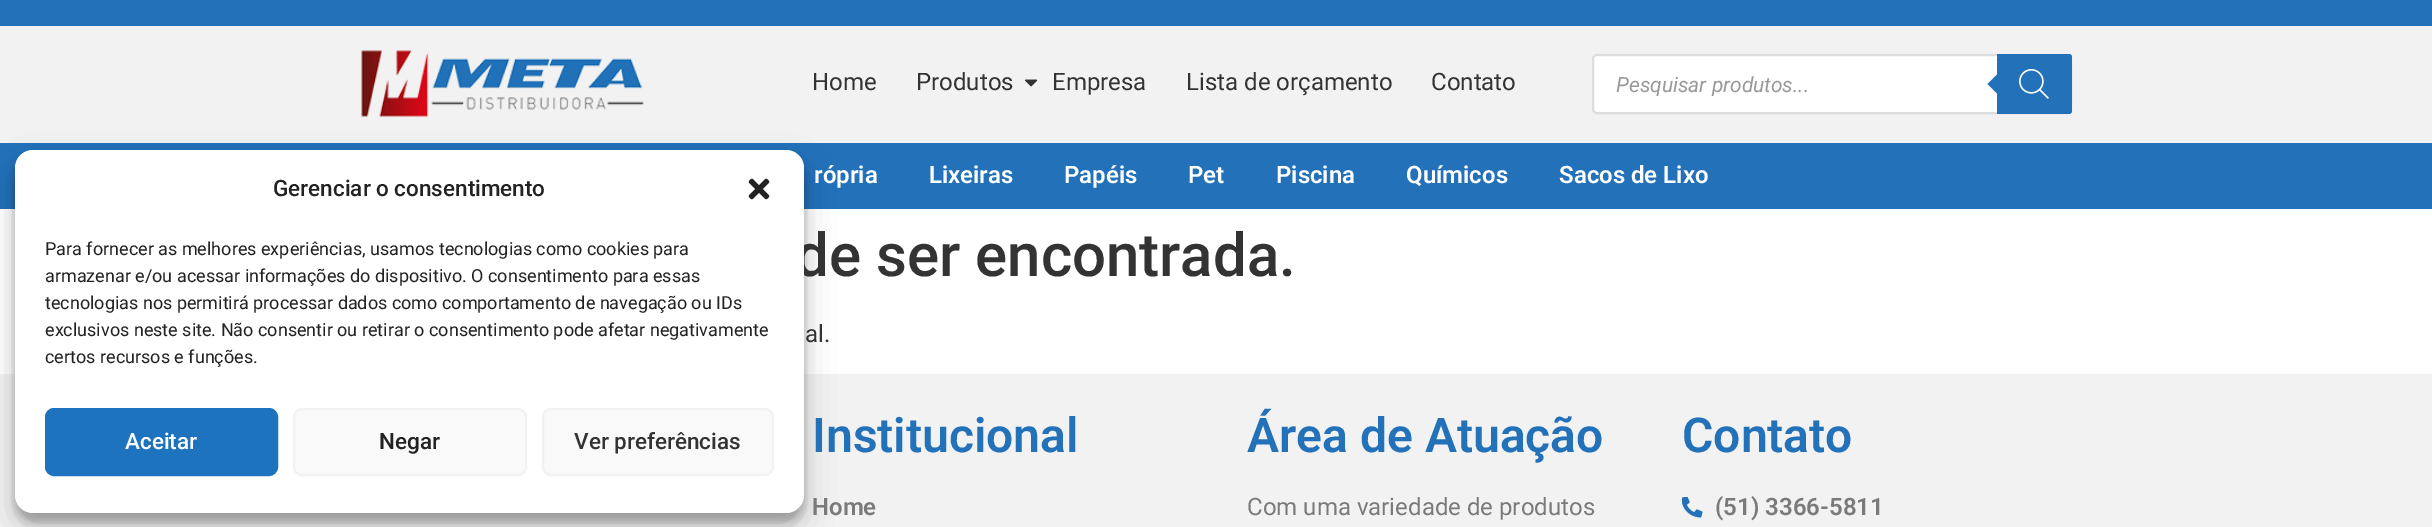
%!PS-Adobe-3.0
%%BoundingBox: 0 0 2432 527
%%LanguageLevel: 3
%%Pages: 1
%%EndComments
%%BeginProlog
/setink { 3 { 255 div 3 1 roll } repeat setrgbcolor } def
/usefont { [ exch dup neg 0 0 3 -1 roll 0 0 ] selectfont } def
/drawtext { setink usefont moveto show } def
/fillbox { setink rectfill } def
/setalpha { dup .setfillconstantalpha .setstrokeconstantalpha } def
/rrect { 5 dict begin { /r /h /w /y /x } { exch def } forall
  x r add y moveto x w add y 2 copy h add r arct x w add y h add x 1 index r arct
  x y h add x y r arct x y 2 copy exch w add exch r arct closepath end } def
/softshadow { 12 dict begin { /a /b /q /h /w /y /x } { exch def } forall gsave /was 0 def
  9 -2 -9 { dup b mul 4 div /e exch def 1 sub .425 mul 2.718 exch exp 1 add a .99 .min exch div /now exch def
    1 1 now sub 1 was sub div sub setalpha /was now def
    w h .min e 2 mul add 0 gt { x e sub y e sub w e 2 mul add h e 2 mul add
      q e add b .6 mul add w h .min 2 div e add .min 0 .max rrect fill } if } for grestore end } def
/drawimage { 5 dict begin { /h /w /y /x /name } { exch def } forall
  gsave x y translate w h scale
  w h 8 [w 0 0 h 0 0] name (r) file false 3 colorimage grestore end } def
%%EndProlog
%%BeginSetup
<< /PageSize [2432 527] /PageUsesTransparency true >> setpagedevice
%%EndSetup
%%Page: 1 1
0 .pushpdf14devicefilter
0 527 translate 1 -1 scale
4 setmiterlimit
0 0 2432 527 255 255 255 fillbox
0 143 2432 66 34 113 185 fillbox
0 374 2432 153 242 242 242 fillbox
0 0 0 setink
15 159 789 363 18 4.5 0.23 softshadow
0 26 2432 117 242 242 242 fillbox
0 0 0 setink
15 165 789 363 18 15 0.19 softshadow
(de ser encontrada.) 795 276 /Roboto-Medium 60 51 51 51 drawtext
255 255 255 setink
15 150 789 363 18 rrect fill
(Gerenciar o consentimento) 273 196 /Roboto-Medium 22.5 34 34 34 drawtext
(assets/img1.rgb) 748 178 22 22 drawimage
(Para fornecer as melhores experiências, usamos tecnologias como cookies para) 45 255 /Roboto-Regular 18 34 34 34 drawtext
(armazenar e/ou acessar informações do dispositivo. O consentimento para essas) 45 282 /Roboto-Regular 18 34 34 34 drawtext
(tecnologias nos permitirá processar dados como comportamento de navegação ou IDs) 45 309 /Roboto-Regular 18 34 34 34 drawtext
(exclusivos neste site. Não consentir ou retirar o consentimento pode afetar negativamente) 45 336 /Roboto-Regular 18 34 34 34 drawtext
(certos recursos e funções.) 45 363 /Roboto-Regular 18 34 34 34 drawtext
30 115 190 setink
46 409 231 66 8 rrect gsave fill grestore
2 setlinewidth
stroke
(Aceitar) 125 449 /Roboto-Medium 22.5 255 255 255 drawtext
249 249 249 setink
294 409 232 66 8 rrect gsave fill grestore
242 242 242 setink
stroke
(Negar) 379 449 /Roboto-Medium 22.5 34 34 34 drawtext
249 249 249 setink
543 409 230 66 8 rrect gsave fill grestore
242 242 242 setink
stroke
(Ver preferências) 574 449 /Roboto-Medium 22.5 51 51 51 drawtext
0 0 2432 26 34 113 185 fillbox
(assets/img2.rgb) 361 50 283 67 drawimage
(Home) 812 90 /Roboto-Regular 24 51 51 51 drawtext
(Produtos) 916 90 /Roboto-Regular 24 51 51 51 drawtext
(assets/img3.rgb) 1025 79 13 8 drawimage
(Empresa) 1052 90 /Roboto-Regular 24 51 51 51 drawtext
(Lista de orçamento) 1186 90 /Roboto-Regular 24 51 51 51 drawtext
(Contato) 1431 90 /Roboto-Regular 24 51 51 51 drawtext
255 255 255 setink
1593 55 478 58 4 rrect gsave fill grestore
221 221 221 setink
stroke
gsave
1616 72 432 24 rectclip
(Pesquisar produtos...) 1616 92 /Roboto-Italic 21 153 153 153 drawtext
grestore
34 113 185 setink
1997 54 moveto 2069 54 lineto 2070.5 54 2072 55.5 2072 57 curveto 2072 111 lineto 2072 112.5 2070.5 114 2069 114 curveto 1997 114 lineto closepath fill
1999.5 72 moveto 1999.5 96 lineto 1987.5 84 lineto closepath fill
(assets/img4.rgb) 2019 68 30 31 drawimage
(rópria) 814 183 /Roboto-SemiBold 24 255 255 255 drawtext
(Lixeiras) 929 183 /Roboto-SemiBold 24 255 255 255 drawtext
(Papéis) 1064 183 /Roboto-SemiBold 24 255 255 255 drawtext
(Pet) 1188 183 /Roboto-SemiBold 24 255 255 255 drawtext
(Piscina) 1276 183 /Roboto-SemiBold 24 255 255 255 drawtext
(Químicos) 1406 183 /Roboto-SemiBold 24 255 255 255 drawtext
(Sacos de Lixo) 1559 183 /Roboto-SemiBold 24 255 255 255 drawtext
(al.) 805 342 /Roboto-Regular 24 51 51 51 drawtext
(Institucional) 812 452 /Roboto-SemiBold 48 34 113 185 drawtext
(Home) 812 515 /Roboto-SemiBold 24 122 122 122 drawtext
(Área de Atuação) 1247 452 /Roboto-SemiBold 48 34 113 185 drawtext
(Com uma variedade de produtos) 1247 515 /Roboto-Regular 24 122 122 122 drawtext
(Contato) 1682 452 /Roboto-SemiBold 48 34 113 185 drawtext
(assets/img5.rgb) 1682 497 21 21 drawimage
(\(51\) 3366-5811) 1715 515 /Roboto-SemiBold 24 122 122 122 drawtext
.poppdf14devicefilter showpage
%%EOF
